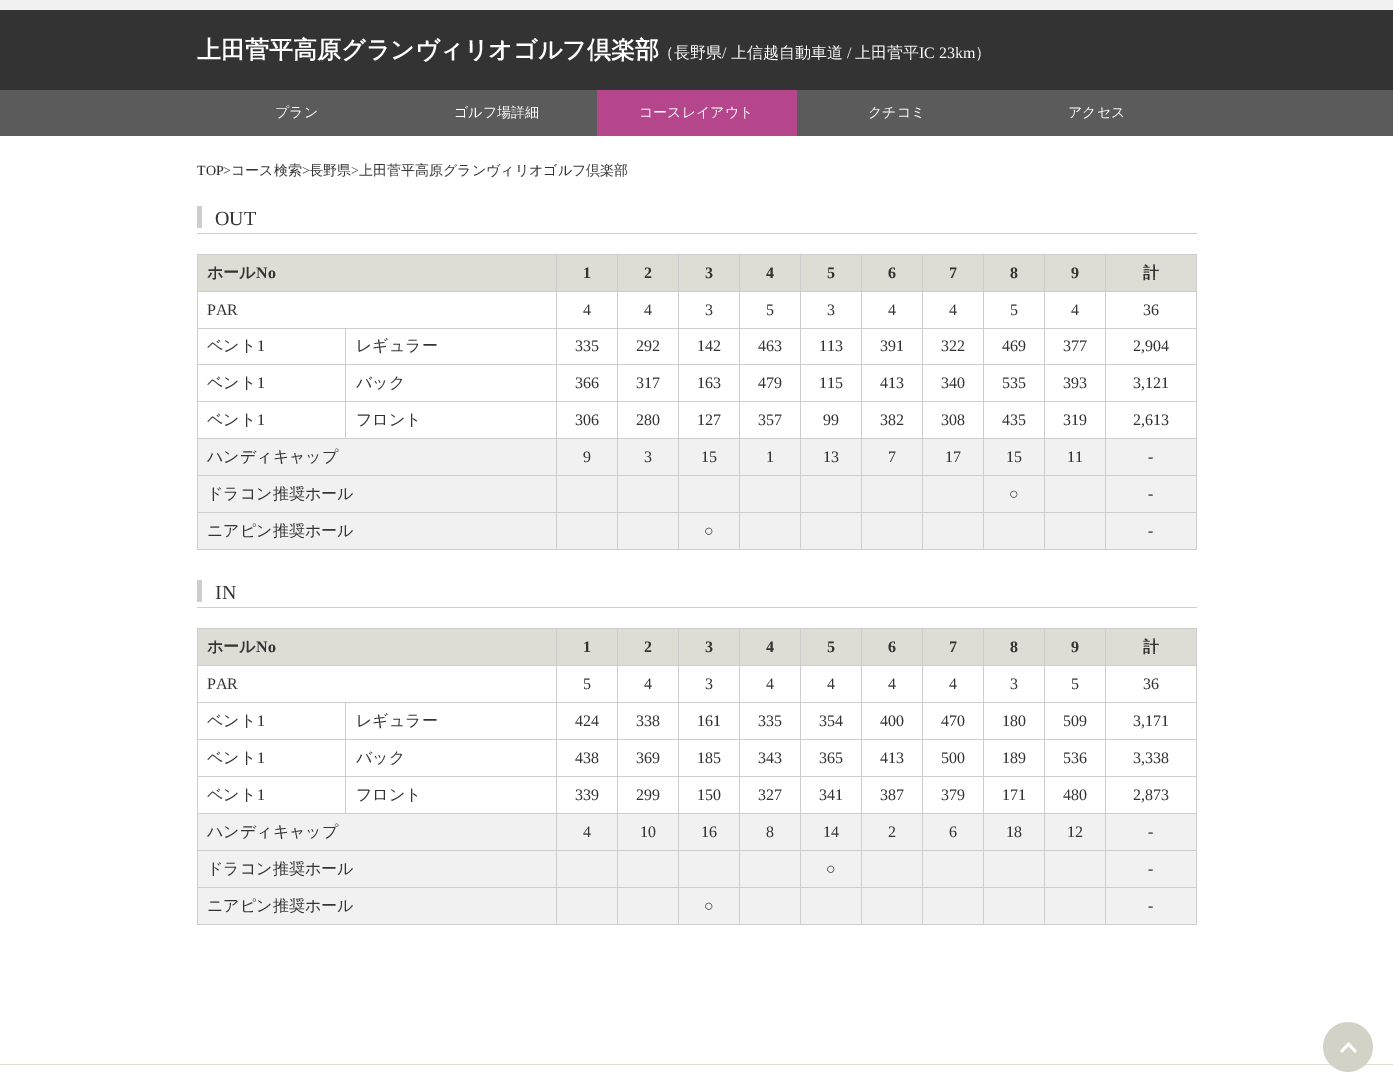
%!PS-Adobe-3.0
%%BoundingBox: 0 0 1393 1092
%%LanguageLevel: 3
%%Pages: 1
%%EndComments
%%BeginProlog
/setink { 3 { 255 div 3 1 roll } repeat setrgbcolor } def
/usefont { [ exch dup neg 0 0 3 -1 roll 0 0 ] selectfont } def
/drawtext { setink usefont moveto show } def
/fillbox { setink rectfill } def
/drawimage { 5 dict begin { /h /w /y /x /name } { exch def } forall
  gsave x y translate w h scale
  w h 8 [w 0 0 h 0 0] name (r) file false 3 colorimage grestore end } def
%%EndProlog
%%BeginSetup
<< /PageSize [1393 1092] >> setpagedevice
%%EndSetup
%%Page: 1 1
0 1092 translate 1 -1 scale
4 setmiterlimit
0 0 1393 1092 255 255 255 fillbox
0 0 1393 10 241 241 241 fillbox
0 10 1393 80 51 51 51 fillbox
(上田菅平高原グランヴィリオゴルフ倶楽部) 197 58 /WenQuanYiZenHei-Bold 24 255 255 255 drawtext
(（長野県) 658 58 /WenQuanYiZenHei-Medium 16 255 255 255 drawtext
(/) 722 58 /LiberationSerif-Regular 16 255 255 255 drawtext
(上信越自動車道) 731 58 /WenQuanYiZenHei-Medium 16 255 255 255 drawtext
(/) 847 58 /LiberationSerif-Regular 16 255 255 255 drawtext
(上田菅平) 855 58 /WenQuanYiZenHei-Medium 16 255 255 255 drawtext
(IC 23km) 919 58 /LiberationSerif-Regular 16 255 255 255 drawtext
(）) 975 58 /WenQuanYiZenHei-Medium 16 255 255 255 drawtext
0 90 1393 46 91 91 91 fillbox
(プラン) 275 117 /WenQuanYiZenHei-Medium 14 255 255 255 drawtext
(ゴルフ場詳細) 454 117 /WenQuanYiZenHei-Medium 14 255 255 255 drawtext
597 90 200 46 182 70 139 fillbox
(コースレイアウト) 639 117 /WenQuanYiZenHei-Medium 14 255 255 255 drawtext
(クチコミ) 868 117 /WenQuanYiZenHei-Medium 14 255 255 255 drawtext
(アクセス) 1068 117 /WenQuanYiZenHei-Medium 14 255 255 255 drawtext
(TOP>) 197 175 /LiberationSerif-Regular 14 51 51 51 drawtext
(コース検索) 231 175 /WenQuanYiZenHei-Medium 14 51 51 51 drawtext
(>) 302 175 /LiberationSerif-Regular 14 51 51 51 drawtext
(長野県) 309 175 /WenQuanYiZenHei-Medium 14 51 51 51 drawtext
(>) 351 175 /LiberationSerif-Regular 14 51 51 51 drawtext
(上田菅平高原グランヴィリオゴルフ倶楽部) 359 175 /WenQuanYiZenHei-Medium 14 51 51 51 drawtext
197 233 1000 1 206 206 206 fillbox
197 206 5 22 205 205 205 fillbox
(OUT) 215 225 /LiberationSerif-Regular 20 51 51 51 drawtext
198 255 358 36 221 220 213 fillbox
1105 254 92 1 205 205 205 fillbox
1105 291 92 1 205 205 205 fillbox
1105 328 92 1 205 205 205 fillbox
1105 364 92 1 205 205 205 fillbox
1105 401 92 1 205 205 205 fillbox
1105 438 92 1 205 205 205 fillbox
1105 475 92 1 205 205 205 fillbox
1105 512 92 1 205 205 205 fillbox
1196 512 1 38 205 205 205 fillbox
1105 549 92 1 205 205 205 fillbox
1105 512 1 38 205 205 205 fillbox
1044 512 62 1 205 205 205 fillbox
1105 475 1 38 205 205 205 fillbox
1044 475 62 1 205 205 205 fillbox
1105 438 1 38 205 205 205 fillbox
1044 438 62 1 205 205 205 fillbox
1105 401 1 38 205 205 205 fillbox
1044 401 62 1 205 205 205 fillbox
1105 364 1 38 205 205 205 fillbox
1044 364 62 1 205 205 205 fillbox
1105 328 1 37 205 205 205 fillbox
1044 328 62 1 205 205 205 fillbox
1105 291 1 38 205 205 205 fillbox
1044 291 62 1 205 205 205 fillbox
1105 254 1 38 205 205 205 fillbox
1044 254 62 1 205 205 205 fillbox
1044 549 62 1 205 205 205 fillbox
1044 512 1 38 205 205 205 fillbox
983 512 62 1 205 205 205 fillbox
1044 475 1 38 205 205 205 fillbox
983 475 62 1 205 205 205 fillbox
1044 438 1 38 205 205 205 fillbox
983 438 62 1 205 205 205 fillbox
1044 401 1 38 205 205 205 fillbox
983 401 62 1 205 205 205 fillbox
1044 364 1 38 205 205 205 fillbox
983 364 62 1 205 205 205 fillbox
1044 328 1 37 205 205 205 fillbox
983 328 62 1 205 205 205 fillbox
1044 291 1 38 205 205 205 fillbox
983 291 62 1 205 205 205 fillbox
1044 254 1 38 205 205 205 fillbox
983 254 62 1 205 205 205 fillbox
983 549 62 1 205 205 205 fillbox
983 512 1 38 205 205 205 fillbox
922 512 62 1 205 205 205 fillbox
983 475 1 38 205 205 205 fillbox
922 475 62 1 205 205 205 fillbox
983 438 1 38 205 205 205 fillbox
922 438 62 1 205 205 205 fillbox
983 401 1 38 205 205 205 fillbox
922 401 62 1 205 205 205 fillbox
983 364 1 38 205 205 205 fillbox
922 364 62 1 205 205 205 fillbox
983 328 1 37 205 205 205 fillbox
922 328 62 1 205 205 205 fillbox
983 291 1 38 205 205 205 fillbox
922 291 62 1 205 205 205 fillbox
983 254 1 38 205 205 205 fillbox
922 254 62 1 205 205 205 fillbox
922 549 62 1 205 205 205 fillbox
922 512 1 38 205 205 205 fillbox
861 512 62 1 205 205 205 fillbox
922 475 1 38 205 205 205 fillbox
861 475 62 1 205 205 205 fillbox
922 438 1 38 205 205 205 fillbox
861 438 62 1 205 205 205 fillbox
922 401 1 38 205 205 205 fillbox
861 401 62 1 205 205 205 fillbox
922 364 1 38 205 205 205 fillbox
861 364 62 1 205 205 205 fillbox
922 328 1 37 205 205 205 fillbox
861 328 62 1 205 205 205 fillbox
922 291 1 38 205 205 205 fillbox
861 291 62 1 205 205 205 fillbox
922 254 1 38 205 205 205 fillbox
861 254 62 1 205 205 205 fillbox
861 549 62 1 205 205 205 fillbox
861 512 1 38 205 205 205 fillbox
800 512 62 1 205 205 205 fillbox
861 475 1 38 205 205 205 fillbox
800 475 62 1 205 205 205 fillbox
861 438 1 38 205 205 205 fillbox
800 438 62 1 205 205 205 fillbox
861 401 1 38 205 205 205 fillbox
800 401 62 1 205 205 205 fillbox
861 364 1 38 205 205 205 fillbox
800 364 62 1 205 205 205 fillbox
861 328 1 37 205 205 205 fillbox
800 328 62 1 205 205 205 fillbox
861 291 1 38 205 205 205 fillbox
800 291 62 1 205 205 205 fillbox
861 254 1 38 205 205 205 fillbox
800 254 62 1 205 205 205 fillbox
800 549 62 1 205 205 205 fillbox
800 512 1 38 205 205 205 fillbox
739 512 62 1 205 205 205 fillbox
800 475 1 38 205 205 205 fillbox
739 475 62 1 205 205 205 fillbox
800 438 1 38 205 205 205 fillbox
739 438 62 1 205 205 205 fillbox
800 401 1 38 205 205 205 fillbox
739 401 62 1 205 205 205 fillbox
800 364 1 38 205 205 205 fillbox
739 364 62 1 205 205 205 fillbox
800 328 1 37 205 205 205 fillbox
739 328 62 1 205 205 205 fillbox
800 291 1 38 205 205 205 fillbox
739 291 62 1 205 205 205 fillbox
800 254 1 38 205 205 205 fillbox
739 254 62 1 205 205 205 fillbox
739 549 62 1 205 205 205 fillbox
739 512 1 38 205 205 205 fillbox
678 512 62 1 205 205 205 fillbox
739 475 1 38 205 205 205 fillbox
678 475 62 1 205 205 205 fillbox
739 438 1 38 205 205 205 fillbox
678 438 62 1 205 205 205 fillbox
739 401 1 38 205 205 205 fillbox
678 401 62 1 205 205 205 fillbox
739 364 1 38 205 205 205 fillbox
678 364 62 1 205 205 205 fillbox
739 328 1 37 205 205 205 fillbox
678 328 62 1 205 205 205 fillbox
739 291 1 38 205 205 205 fillbox
678 291 62 1 205 205 205 fillbox
739 254 1 38 205 205 205 fillbox
678 254 62 1 205 205 205 fillbox
678 549 62 1 205 205 205 fillbox
678 512 1 38 205 205 205 fillbox
617 512 62 1 205 205 205 fillbox
678 475 1 38 205 205 205 fillbox
617 475 62 1 205 205 205 fillbox
678 438 1 38 205 205 205 fillbox
617 438 62 1 205 205 205 fillbox
678 401 1 38 205 205 205 fillbox
617 401 62 1 205 205 205 fillbox
678 364 1 38 205 205 205 fillbox
617 364 62 1 205 205 205 fillbox
678 328 1 37 205 205 205 fillbox
617 328 62 1 205 205 205 fillbox
678 291 1 38 205 205 205 fillbox
617 291 62 1 205 205 205 fillbox
678 254 1 38 205 205 205 fillbox
617 254 62 1 205 205 205 fillbox
617 549 62 1 205 205 205 fillbox
617 512 1 38 205 205 205 fillbox
556 512 62 1 205 205 205 fillbox
617 475 1 38 205 205 205 fillbox
556 475 62 1 205 205 205 fillbox
617 438 1 38 205 205 205 fillbox
556 438 62 1 205 205 205 fillbox
617 401 1 38 205 205 205 fillbox
556 401 62 1 205 205 205 fillbox
617 364 1 38 205 205 205 fillbox
556 364 62 1 205 205 205 fillbox
617 328 1 37 205 205 205 fillbox
556 328 62 1 205 205 205 fillbox
617 291 1 38 205 205 205 fillbox
556 291 62 1 205 205 205 fillbox
617 254 1 38 205 205 205 fillbox
556 254 62 1 205 205 205 fillbox
556 549 62 1 205 205 205 fillbox
556 512 1 38 205 205 205 fillbox
197 512 360 1 205 205 205 fillbox
556 475 1 38 205 205 205 fillbox
197 475 360 1 205 205 205 fillbox
556 438 1 38 205 205 205 fillbox
197 438 360 1 205 205 205 fillbox
556 401 1 38 205 205 205 fillbox
345 401 212 1 205 205 205 fillbox
556 364 1 38 205 205 205 fillbox
345 364 212 1 205 205 205 fillbox
556 328 1 37 205 205 205 fillbox
345 328 212 1 205 205 205 fillbox
556 291 1 38 205 205 205 fillbox
197 291 360 1 205 205 205 fillbox
556 254 1 38 205 205 205 fillbox
197 254 360 1 205 205 205 fillbox
345 401 1 38 205 205 205 fillbox
197 401 149 1 205 205 205 fillbox
345 364 1 38 205 205 205 fillbox
197 364 149 1 205 205 205 fillbox
345 328 1 37 205 205 205 fillbox
197 328 149 1 205 205 205 fillbox
197 549 360 1 205 205 205 fillbox
197 512 1 38 205 205 205 fillbox
197 475 1 38 205 205 205 fillbox
197 438 1 38 205 205 205 fillbox
197 401 1 38 205 205 205 fillbox
197 364 1 38 205 205 205 fillbox
197 328 1 37 205 205 205 fillbox
197 291 1 38 205 205 205 fillbox
197 254 1 38 205 205 205 fillbox
(ホール) 207 278 /WenQuanYiZenHei-Bold 16 51 51 51 drawtext
(No) 256 278 /LiberationSerif-Bold 16 51 51 51 drawtext
557 255 60 36 221 220 213 fillbox
(1) 583 278 /LiberationSerif-Bold 16 51 51 51 drawtext
618 255 60 36 221 220 213 fillbox
(2) 644 278 /LiberationSerif-Bold 16 51 51 51 drawtext
679 255 60 36 221 220 213 fillbox
(3) 705 278 /LiberationSerif-Bold 16 51 51 51 drawtext
740 255 60 36 221 220 213 fillbox
(4) 766 278 /LiberationSerif-Bold 16 51 51 51 drawtext
801 255 60 36 221 220 213 fillbox
(5) 827 278 /LiberationSerif-Bold 16 51 51 51 drawtext
862 255 60 36 221 220 213 fillbox
(6) 888 278 /LiberationSerif-Bold 16 51 51 51 drawtext
923 255 60 36 221 220 213 fillbox
(7) 949 278 /LiberationSerif-Bold 16 51 51 51 drawtext
984 255 60 36 221 220 213 fillbox
(8) 1010 278 /LiberationSerif-Bold 16 51 51 51 drawtext
1045 255 60 36 221 220 213 fillbox
(9) 1071 278 /LiberationSerif-Bold 16 51 51 51 drawtext
1106 255 90 36 221 220 213 fillbox
1196 475 1 38 205 205 205 fillbox
1196 438 1 38 205 205 205 fillbox
1196 401 1 38 205 205 205 fillbox
1196 364 1 38 205 205 205 fillbox
1196 328 1 37 205 205 205 fillbox
1196 291 1 38 205 205 205 fillbox
1196 254 1 38 205 205 205 fillbox
(計) 1143 278 /WenQuanYiZenHei-Bold 16 51 51 51 drawtext
(PAR) 207 315 /LiberationSerif-Regular 16 51 51 51 drawtext
(4) 583 315 /LiberationSerif-Regular 16 51 51 51 drawtext
(4) 644 315 /LiberationSerif-Regular 16 51 51 51 drawtext
(3) 705 315 /LiberationSerif-Regular 16 51 51 51 drawtext
(5) 766 315 /LiberationSerif-Regular 16 51 51 51 drawtext
(3) 827 315 /LiberationSerif-Regular 16 51 51 51 drawtext
(4) 888 315 /LiberationSerif-Regular 16 51 51 51 drawtext
(4) 949 315 /LiberationSerif-Regular 16 51 51 51 drawtext
(5) 1010 315 /LiberationSerif-Regular 16 51 51 51 drawtext
(4) 1071 315 /LiberationSerif-Regular 16 51 51 51 drawtext
(36) 1143 315 /LiberationSerif-Regular 16 51 51 51 drawtext
(ベント) 207 351 /WenQuanYiZenHei-Medium 16 51 51 51 drawtext
(1) 257 351 /LiberationSerif-Regular 16 51 51 51 drawtext
(レギュラー) 356 351 /WenQuanYiZenHei-Medium 16 51 51 51 drawtext
(335) 575 351 /LiberationSerif-Regular 16 51 51 51 drawtext
(292) 636 351 /LiberationSerif-Regular 16 51 51 51 drawtext
(142) 697 351 /LiberationSerif-Regular 16 51 51 51 drawtext
(463) 758 351 /LiberationSerif-Regular 16 51 51 51 drawtext
(113) 819 351 /LiberationSerif-Regular 16 51 51 51 drawtext
(391) 880 351 /LiberationSerif-Regular 16 51 51 51 drawtext
(322) 941 351 /LiberationSerif-Regular 16 51 51 51 drawtext
(469) 1002 351 /LiberationSerif-Regular 16 51 51 51 drawtext
(377) 1063 351 /LiberationSerif-Regular 16 51 51 51 drawtext
(2,904) 1133 351 /LiberationSerif-Regular 16 51 51 51 drawtext
(ベント) 207 388 /WenQuanYiZenHei-Medium 16 51 51 51 drawtext
(1) 257 388 /LiberationSerif-Regular 16 51 51 51 drawtext
(バック) 356 388 /WenQuanYiZenHei-Medium 16 51 51 51 drawtext
(366) 575 388 /LiberationSerif-Regular 16 51 51 51 drawtext
(317) 636 388 /LiberationSerif-Regular 16 51 51 51 drawtext
(163) 697 388 /LiberationSerif-Regular 16 51 51 51 drawtext
(479) 758 388 /LiberationSerif-Regular 16 51 51 51 drawtext
(115) 819 388 /LiberationSerif-Regular 16 51 51 51 drawtext
(413) 880 388 /LiberationSerif-Regular 16 51 51 51 drawtext
(340) 941 388 /LiberationSerif-Regular 16 51 51 51 drawtext
(535) 1002 388 /LiberationSerif-Regular 16 51 51 51 drawtext
(393) 1063 388 /LiberationSerif-Regular 16 51 51 51 drawtext
(3,121) 1133 388 /LiberationSerif-Regular 16 51 51 51 drawtext
(ベント) 207 425 /WenQuanYiZenHei-Medium 16 51 51 51 drawtext
(1) 257 425 /LiberationSerif-Regular 16 51 51 51 drawtext
(フロント) 356 425 /WenQuanYiZenHei-Medium 16 51 51 51 drawtext
(306) 575 425 /LiberationSerif-Regular 16 51 51 51 drawtext
(280) 636 425 /LiberationSerif-Regular 16 51 51 51 drawtext
(127) 697 425 /LiberationSerif-Regular 16 51 51 51 drawtext
(357) 758 425 /LiberationSerif-Regular 16 51 51 51 drawtext
(99) 823 425 /LiberationSerif-Regular 16 51 51 51 drawtext
(382) 880 425 /LiberationSerif-Regular 16 51 51 51 drawtext
(308) 941 425 /LiberationSerif-Regular 16 51 51 51 drawtext
(435) 1002 425 /LiberationSerif-Regular 16 51 51 51 drawtext
(319) 1063 425 /LiberationSerif-Regular 16 51 51 51 drawtext
(2,613) 1133 425 /LiberationSerif-Regular 16 51 51 51 drawtext
198 439 358 36 241 241 241 fillbox
(ハンディキャップ) 207 462 /WenQuanYiZenHei-Medium 16 51 51 51 drawtext
557 439 60 36 241 241 241 fillbox
(9) 583 462 /LiberationSerif-Regular 16 51 51 51 drawtext
618 439 60 36 241 241 241 fillbox
(3) 644 462 /LiberationSerif-Regular 16 51 51 51 drawtext
679 439 60 36 241 241 241 fillbox
(15) 701 462 /LiberationSerif-Regular 16 51 51 51 drawtext
740 439 60 36 241 241 241 fillbox
(1) 766 462 /LiberationSerif-Regular 16 51 51 51 drawtext
801 439 60 36 241 241 241 fillbox
(13) 823 462 /LiberationSerif-Regular 16 51 51 51 drawtext
862 439 60 36 241 241 241 fillbox
(7) 888 462 /LiberationSerif-Regular 16 51 51 51 drawtext
923 439 60 36 241 241 241 fillbox
(17) 945 462 /LiberationSerif-Regular 16 51 51 51 drawtext
984 439 60 36 241 241 241 fillbox
(15) 1006 462 /LiberationSerif-Regular 16 51 51 51 drawtext
1045 439 60 36 241 241 241 fillbox
(11) 1067 462 /LiberationSerif-Regular 16 51 51 51 drawtext
1106 439 90 36 241 241 241 fillbox
(-) 1148 462 /LiberationSerif-Regular 16 51 51 51 drawtext
198 476 358 36 241 241 241 fillbox
(ドラコン推奨ホール) 207 499 /WenQuanYiZenHei-Medium 16 51 51 51 drawtext
557 476 60 36 241 241 241 fillbox
618 476 60 36 241 241 241 fillbox
679 476 60 36 241 241 241 fillbox
740 476 60 36 241 241 241 fillbox
801 476 60 36 241 241 241 fillbox
862 476 60 36 241 241 241 fillbox
923 476 60 36 241 241 241 fillbox
984 476 60 36 241 241 241 fillbox
(○) 1009 499 /LiberationSerif-Regular 16 51 51 51 drawtext
1045 476 60 36 241 241 241 fillbox
1106 476 90 36 241 241 241 fillbox
(-) 1148 499 /LiberationSerif-Regular 16 51 51 51 drawtext
198 513 358 36 241 241 241 fillbox
(ニアピン推奨ホール) 207 536 /WenQuanYiZenHei-Medium 16 51 51 51 drawtext
557 513 60 36 241 241 241 fillbox
618 513 60 36 241 241 241 fillbox
679 513 60 36 241 241 241 fillbox
(○) 704 536 /LiberationSerif-Regular 16 51 51 51 drawtext
740 513 60 36 241 241 241 fillbox
801 513 60 36 241 241 241 fillbox
862 513 60 36 241 241 241 fillbox
923 513 60 36 241 241 241 fillbox
984 513 60 36 241 241 241 fillbox
1045 513 60 36 241 241 241 fillbox
1106 513 90 36 241 241 241 fillbox
(-) 1148 536 /LiberationSerif-Regular 16 51 51 51 drawtext
197 607 1000 1 206 206 206 fillbox
197 580 5 22 205 205 205 fillbox
(IN) 215 599 /LiberationSerif-Regular 20 51 51 51 drawtext
198 629 358 36 221 220 213 fillbox
1105 628 92 1 205 205 205 fillbox
1105 665 92 1 205 205 205 fillbox
1105 702 92 1 205 205 205 fillbox
1105 739 92 1 205 205 205 fillbox
1105 776 92 1 205 205 205 fillbox
1105 813 92 1 205 205 205 fillbox
1105 850 92 1 205 205 205 fillbox
1105 887 92 1 205 205 205 fillbox
1196 887 1 38 205 205 205 fillbox
1105 924 92 1 205 205 205 fillbox
1105 887 1 38 205 205 205 fillbox
1044 887 62 1 205 205 205 fillbox
1105 850 1 38 205 205 205 fillbox
1044 850 62 1 205 205 205 fillbox
1105 813 1 38 205 205 205 fillbox
1044 813 62 1 205 205 205 fillbox
1105 776 1 38 205 205 205 fillbox
1044 776 62 1 205 205 205 fillbox
1105 739 1 38 205 205 205 fillbox
1044 739 62 1 205 205 205 fillbox
1105 702 1 38 205 205 205 fillbox
1044 702 62 1 205 205 205 fillbox
1105 665 1 38 205 205 205 fillbox
1044 665 62 1 205 205 205 fillbox
1105 628 1 38 205 205 205 fillbox
1044 628 62 1 205 205 205 fillbox
1044 924 62 1 205 205 205 fillbox
1044 887 1 38 205 205 205 fillbox
983 887 62 1 205 205 205 fillbox
1044 850 1 38 205 205 205 fillbox
983 850 62 1 205 205 205 fillbox
1044 813 1 38 205 205 205 fillbox
983 813 62 1 205 205 205 fillbox
1044 776 1 38 205 205 205 fillbox
983 776 62 1 205 205 205 fillbox
1044 739 1 38 205 205 205 fillbox
983 739 62 1 205 205 205 fillbox
1044 702 1 38 205 205 205 fillbox
983 702 62 1 205 205 205 fillbox
1044 665 1 38 205 205 205 fillbox
983 665 62 1 205 205 205 fillbox
1044 628 1 38 205 205 205 fillbox
983 628 62 1 205 205 205 fillbox
983 924 62 1 205 205 205 fillbox
983 887 1 38 205 205 205 fillbox
922 887 62 1 205 205 205 fillbox
983 850 1 38 205 205 205 fillbox
922 850 62 1 205 205 205 fillbox
983 813 1 38 205 205 205 fillbox
922 813 62 1 205 205 205 fillbox
983 776 1 38 205 205 205 fillbox
922 776 62 1 205 205 205 fillbox
983 739 1 38 205 205 205 fillbox
922 739 62 1 205 205 205 fillbox
983 702 1 38 205 205 205 fillbox
922 702 62 1 205 205 205 fillbox
983 665 1 38 205 205 205 fillbox
922 665 62 1 205 205 205 fillbox
983 628 1 38 205 205 205 fillbox
922 628 62 1 205 205 205 fillbox
922 924 62 1 205 205 205 fillbox
922 887 1 38 205 205 205 fillbox
861 887 62 1 205 205 205 fillbox
922 850 1 38 205 205 205 fillbox
861 850 62 1 205 205 205 fillbox
922 813 1 38 205 205 205 fillbox
861 813 62 1 205 205 205 fillbox
922 776 1 38 205 205 205 fillbox
861 776 62 1 205 205 205 fillbox
922 739 1 38 205 205 205 fillbox
861 739 62 1 205 205 205 fillbox
922 702 1 38 205 205 205 fillbox
861 702 62 1 205 205 205 fillbox
922 665 1 38 205 205 205 fillbox
861 665 62 1 205 205 205 fillbox
922 628 1 38 205 205 205 fillbox
861 628 62 1 205 205 205 fillbox
861 924 62 1 205 205 205 fillbox
861 887 1 38 205 205 205 fillbox
800 887 62 1 205 205 205 fillbox
861 850 1 38 205 205 205 fillbox
800 850 62 1 205 205 205 fillbox
861 813 1 38 205 205 205 fillbox
800 813 62 1 205 205 205 fillbox
861 776 1 38 205 205 205 fillbox
800 776 62 1 205 205 205 fillbox
861 739 1 38 205 205 205 fillbox
800 739 62 1 205 205 205 fillbox
861 702 1 38 205 205 205 fillbox
800 702 62 1 205 205 205 fillbox
861 665 1 38 205 205 205 fillbox
800 665 62 1 205 205 205 fillbox
861 628 1 38 205 205 205 fillbox
800 628 62 1 205 205 205 fillbox
800 924 62 1 205 205 205 fillbox
800 887 1 38 205 205 205 fillbox
739 887 62 1 205 205 205 fillbox
800 850 1 38 205 205 205 fillbox
739 850 62 1 205 205 205 fillbox
800 813 1 38 205 205 205 fillbox
739 813 62 1 205 205 205 fillbox
800 776 1 38 205 205 205 fillbox
739 776 62 1 205 205 205 fillbox
800 739 1 38 205 205 205 fillbox
739 739 62 1 205 205 205 fillbox
800 702 1 38 205 205 205 fillbox
739 702 62 1 205 205 205 fillbox
800 665 1 38 205 205 205 fillbox
739 665 62 1 205 205 205 fillbox
800 628 1 38 205 205 205 fillbox
739 628 62 1 205 205 205 fillbox
739 924 62 1 205 205 205 fillbox
739 887 1 38 205 205 205 fillbox
678 887 62 1 205 205 205 fillbox
739 850 1 38 205 205 205 fillbox
678 850 62 1 205 205 205 fillbox
739 813 1 38 205 205 205 fillbox
678 813 62 1 205 205 205 fillbox
739 776 1 38 205 205 205 fillbox
678 776 62 1 205 205 205 fillbox
739 739 1 38 205 205 205 fillbox
678 739 62 1 205 205 205 fillbox
739 702 1 38 205 205 205 fillbox
678 702 62 1 205 205 205 fillbox
739 665 1 38 205 205 205 fillbox
678 665 62 1 205 205 205 fillbox
739 628 1 38 205 205 205 fillbox
678 628 62 1 205 205 205 fillbox
678 924 62 1 205 205 205 fillbox
678 887 1 38 205 205 205 fillbox
617 887 62 1 205 205 205 fillbox
678 850 1 38 205 205 205 fillbox
617 850 62 1 205 205 205 fillbox
678 813 1 38 205 205 205 fillbox
617 813 62 1 205 205 205 fillbox
678 776 1 38 205 205 205 fillbox
617 776 62 1 205 205 205 fillbox
678 739 1 38 205 205 205 fillbox
617 739 62 1 205 205 205 fillbox
678 702 1 38 205 205 205 fillbox
617 702 62 1 205 205 205 fillbox
678 665 1 38 205 205 205 fillbox
617 665 62 1 205 205 205 fillbox
678 628 1 38 205 205 205 fillbox
617 628 62 1 205 205 205 fillbox
617 924 62 1 205 205 205 fillbox
617 887 1 38 205 205 205 fillbox
556 887 62 1 205 205 205 fillbox
617 850 1 38 205 205 205 fillbox
556 850 62 1 205 205 205 fillbox
617 813 1 38 205 205 205 fillbox
556 813 62 1 205 205 205 fillbox
617 776 1 38 205 205 205 fillbox
556 776 62 1 205 205 205 fillbox
617 739 1 38 205 205 205 fillbox
556 739 62 1 205 205 205 fillbox
617 702 1 38 205 205 205 fillbox
556 702 62 1 205 205 205 fillbox
617 665 1 38 205 205 205 fillbox
556 665 62 1 205 205 205 fillbox
617 628 1 38 205 205 205 fillbox
556 628 62 1 205 205 205 fillbox
556 924 62 1 205 205 205 fillbox
556 887 1 38 205 205 205 fillbox
197 887 360 1 205 205 205 fillbox
556 850 1 38 205 205 205 fillbox
197 850 360 1 205 205 205 fillbox
556 813 1 38 205 205 205 fillbox
197 813 360 1 205 205 205 fillbox
556 776 1 38 205 205 205 fillbox
345 776 212 1 205 205 205 fillbox
556 739 1 38 205 205 205 fillbox
345 739 212 1 205 205 205 fillbox
556 702 1 38 205 205 205 fillbox
345 702 212 1 205 205 205 fillbox
556 665 1 38 205 205 205 fillbox
197 665 360 1 205 205 205 fillbox
556 628 1 38 205 205 205 fillbox
197 628 360 1 205 205 205 fillbox
345 776 1 38 205 205 205 fillbox
197 776 149 1 205 205 205 fillbox
345 739 1 38 205 205 205 fillbox
197 739 149 1 205 205 205 fillbox
345 702 1 38 205 205 205 fillbox
197 702 149 1 205 205 205 fillbox
197 924 360 1 205 205 205 fillbox
197 887 1 38 205 205 205 fillbox
197 850 1 38 205 205 205 fillbox
197 813 1 38 205 205 205 fillbox
197 776 1 38 205 205 205 fillbox
197 739 1 38 205 205 205 fillbox
197 702 1 38 205 205 205 fillbox
197 665 1 38 205 205 205 fillbox
197 628 1 38 205 205 205 fillbox
(ホール) 207 652 /WenQuanYiZenHei-Bold 16 51 51 51 drawtext
(No) 256 652 /LiberationSerif-Bold 16 51 51 51 drawtext
557 629 60 36 221 220 213 fillbox
(1) 583 652 /LiberationSerif-Bold 16 51 51 51 drawtext
618 629 60 36 221 220 213 fillbox
(2) 644 652 /LiberationSerif-Bold 16 51 51 51 drawtext
679 629 60 36 221 220 213 fillbox
(3) 705 652 /LiberationSerif-Bold 16 51 51 51 drawtext
740 629 60 36 221 220 213 fillbox
(4) 766 652 /LiberationSerif-Bold 16 51 51 51 drawtext
801 629 60 36 221 220 213 fillbox
(5) 827 652 /LiberationSerif-Bold 16 51 51 51 drawtext
862 629 60 36 221 220 213 fillbox
(6) 888 652 /LiberationSerif-Bold 16 51 51 51 drawtext
923 629 60 36 221 220 213 fillbox
(7) 949 652 /LiberationSerif-Bold 16 51 51 51 drawtext
984 629 60 36 221 220 213 fillbox
(8) 1010 652 /LiberationSerif-Bold 16 51 51 51 drawtext
1045 629 60 36 221 220 213 fillbox
(9) 1071 652 /LiberationSerif-Bold 16 51 51 51 drawtext
1106 629 90 36 221 220 213 fillbox
1196 850 1 38 205 205 205 fillbox
1196 813 1 38 205 205 205 fillbox
1196 776 1 38 205 205 205 fillbox
1196 739 1 38 205 205 205 fillbox
1196 702 1 38 205 205 205 fillbox
1196 665 1 38 205 205 205 fillbox
1196 628 1 38 205 205 205 fillbox
(計) 1143 652 /WenQuanYiZenHei-Bold 16 51 51 51 drawtext
(PAR) 207 689 /LiberationSerif-Regular 16 51 51 51 drawtext
(5) 583 689 /LiberationSerif-Regular 16 51 51 51 drawtext
(4) 644 689 /LiberationSerif-Regular 16 51 51 51 drawtext
(3) 705 689 /LiberationSerif-Regular 16 51 51 51 drawtext
(4) 766 689 /LiberationSerif-Regular 16 51 51 51 drawtext
(4) 827 689 /LiberationSerif-Regular 16 51 51 51 drawtext
(4) 888 689 /LiberationSerif-Regular 16 51 51 51 drawtext
(4) 949 689 /LiberationSerif-Regular 16 51 51 51 drawtext
(3) 1010 689 /LiberationSerif-Regular 16 51 51 51 drawtext
(5) 1071 689 /LiberationSerif-Regular 16 51 51 51 drawtext
(36) 1143 689 /LiberationSerif-Regular 16 51 51 51 drawtext
(ベント) 207 726 /WenQuanYiZenHei-Medium 16 51 51 51 drawtext
(1) 257 726 /LiberationSerif-Regular 16 51 51 51 drawtext
(レギュラー) 356 726 /WenQuanYiZenHei-Medium 16 51 51 51 drawtext
(424) 575 726 /LiberationSerif-Regular 16 51 51 51 drawtext
(338) 636 726 /LiberationSerif-Regular 16 51 51 51 drawtext
(161) 697 726 /LiberationSerif-Regular 16 51 51 51 drawtext
(335) 758 726 /LiberationSerif-Regular 16 51 51 51 drawtext
(354) 819 726 /LiberationSerif-Regular 16 51 51 51 drawtext
(400) 880 726 /LiberationSerif-Regular 16 51 51 51 drawtext
(470) 941 726 /LiberationSerif-Regular 16 51 51 51 drawtext
(180) 1002 726 /LiberationSerif-Regular 16 51 51 51 drawtext
(509) 1063 726 /LiberationSerif-Regular 16 51 51 51 drawtext
(3,171) 1133 726 /LiberationSerif-Regular 16 51 51 51 drawtext
(ベント) 207 763 /WenQuanYiZenHei-Medium 16 51 51 51 drawtext
(1) 257 763 /LiberationSerif-Regular 16 51 51 51 drawtext
(バック) 356 763 /WenQuanYiZenHei-Medium 16 51 51 51 drawtext
(438) 575 763 /LiberationSerif-Regular 16 51 51 51 drawtext
(369) 636 763 /LiberationSerif-Regular 16 51 51 51 drawtext
(185) 697 763 /LiberationSerif-Regular 16 51 51 51 drawtext
(343) 758 763 /LiberationSerif-Regular 16 51 51 51 drawtext
(365) 819 763 /LiberationSerif-Regular 16 51 51 51 drawtext
(413) 880 763 /LiberationSerif-Regular 16 51 51 51 drawtext
(500) 941 763 /LiberationSerif-Regular 16 51 51 51 drawtext
(189) 1002 763 /LiberationSerif-Regular 16 51 51 51 drawtext
(536) 1063 763 /LiberationSerif-Regular 16 51 51 51 drawtext
(3,338) 1133 763 /LiberationSerif-Regular 16 51 51 51 drawtext
(ベント) 207 800 /WenQuanYiZenHei-Medium 16 51 51 51 drawtext
(1) 257 800 /LiberationSerif-Regular 16 51 51 51 drawtext
(フロント) 356 800 /WenQuanYiZenHei-Medium 16 51 51 51 drawtext
(339) 575 800 /LiberationSerif-Regular 16 51 51 51 drawtext
(299) 636 800 /LiberationSerif-Regular 16 51 51 51 drawtext
(150) 697 800 /LiberationSerif-Regular 16 51 51 51 drawtext
(327) 758 800 /LiberationSerif-Regular 16 51 51 51 drawtext
(341) 819 800 /LiberationSerif-Regular 16 51 51 51 drawtext
(387) 880 800 /LiberationSerif-Regular 16 51 51 51 drawtext
(379) 941 800 /LiberationSerif-Regular 16 51 51 51 drawtext
(171) 1002 800 /LiberationSerif-Regular 16 51 51 51 drawtext
(480) 1063 800 /LiberationSerif-Regular 16 51 51 51 drawtext
(2,873) 1133 800 /LiberationSerif-Regular 16 51 51 51 drawtext
198 814 358 36 241 241 241 fillbox
(ハンディキャップ) 207 837 /WenQuanYiZenHei-Medium 16 51 51 51 drawtext
557 814 60 36 241 241 241 fillbox
(4) 583 837 /LiberationSerif-Regular 16 51 51 51 drawtext
618 814 60 36 241 241 241 fillbox
(10) 640 837 /LiberationSerif-Regular 16 51 51 51 drawtext
679 814 60 36 241 241 241 fillbox
(16) 701 837 /LiberationSerif-Regular 16 51 51 51 drawtext
740 814 60 36 241 241 241 fillbox
(8) 766 837 /LiberationSerif-Regular 16 51 51 51 drawtext
801 814 60 36 241 241 241 fillbox
(14) 823 837 /LiberationSerif-Regular 16 51 51 51 drawtext
862 814 60 36 241 241 241 fillbox
(2) 888 837 /LiberationSerif-Regular 16 51 51 51 drawtext
923 814 60 36 241 241 241 fillbox
(6) 949 837 /LiberationSerif-Regular 16 51 51 51 drawtext
984 814 60 36 241 241 241 fillbox
(18) 1006 837 /LiberationSerif-Regular 16 51 51 51 drawtext
1045 814 60 36 241 241 241 fillbox
(12) 1067 837 /LiberationSerif-Regular 16 51 51 51 drawtext
1106 814 90 36 241 241 241 fillbox
(-) 1148 837 /LiberationSerif-Regular 16 51 51 51 drawtext
198 851 358 36 241 241 241 fillbox
(ドラコン推奨ホール) 207 874 /WenQuanYiZenHei-Medium 16 51 51 51 drawtext
557 851 60 36 241 241 241 fillbox
618 851 60 36 241 241 241 fillbox
679 851 60 36 241 241 241 fillbox
740 851 60 36 241 241 241 fillbox
801 851 60 36 241 241 241 fillbox
(○) 826 874 /LiberationSerif-Regular 16 51 51 51 drawtext
862 851 60 36 241 241 241 fillbox
923 851 60 36 241 241 241 fillbox
984 851 60 36 241 241 241 fillbox
1045 851 60 36 241 241 241 fillbox
1106 851 90 36 241 241 241 fillbox
(-) 1148 874 /LiberationSerif-Regular 16 51 51 51 drawtext
198 888 358 36 241 241 241 fillbox
(ニアピン推奨ホール) 207 911 /WenQuanYiZenHei-Medium 16 51 51 51 drawtext
557 888 60 36 241 241 241 fillbox
618 888 60 36 241 241 241 fillbox
679 888 60 36 241 241 241 fillbox
(○) 704 911 /LiberationSerif-Regular 16 51 51 51 drawtext
740 888 60 36 241 241 241 fillbox
801 888 60 36 241 241 241 fillbox
862 888 60 36 241 241 241 fillbox
923 888 60 36 241 241 241 fillbox
984 888 60 36 241 241 241 fillbox
1045 888 60 36 241 241 241 fillbox
1106 888 90 36 241 241 241 fillbox
(-) 1148 911 /LiberationSerif-Regular 16 51 51 51 drawtext
0 1064 1393 1 221 220 213 fillbox
(assets/img1.rgb) 1323 1022 50 50 drawimage
showpage
%%EOF
